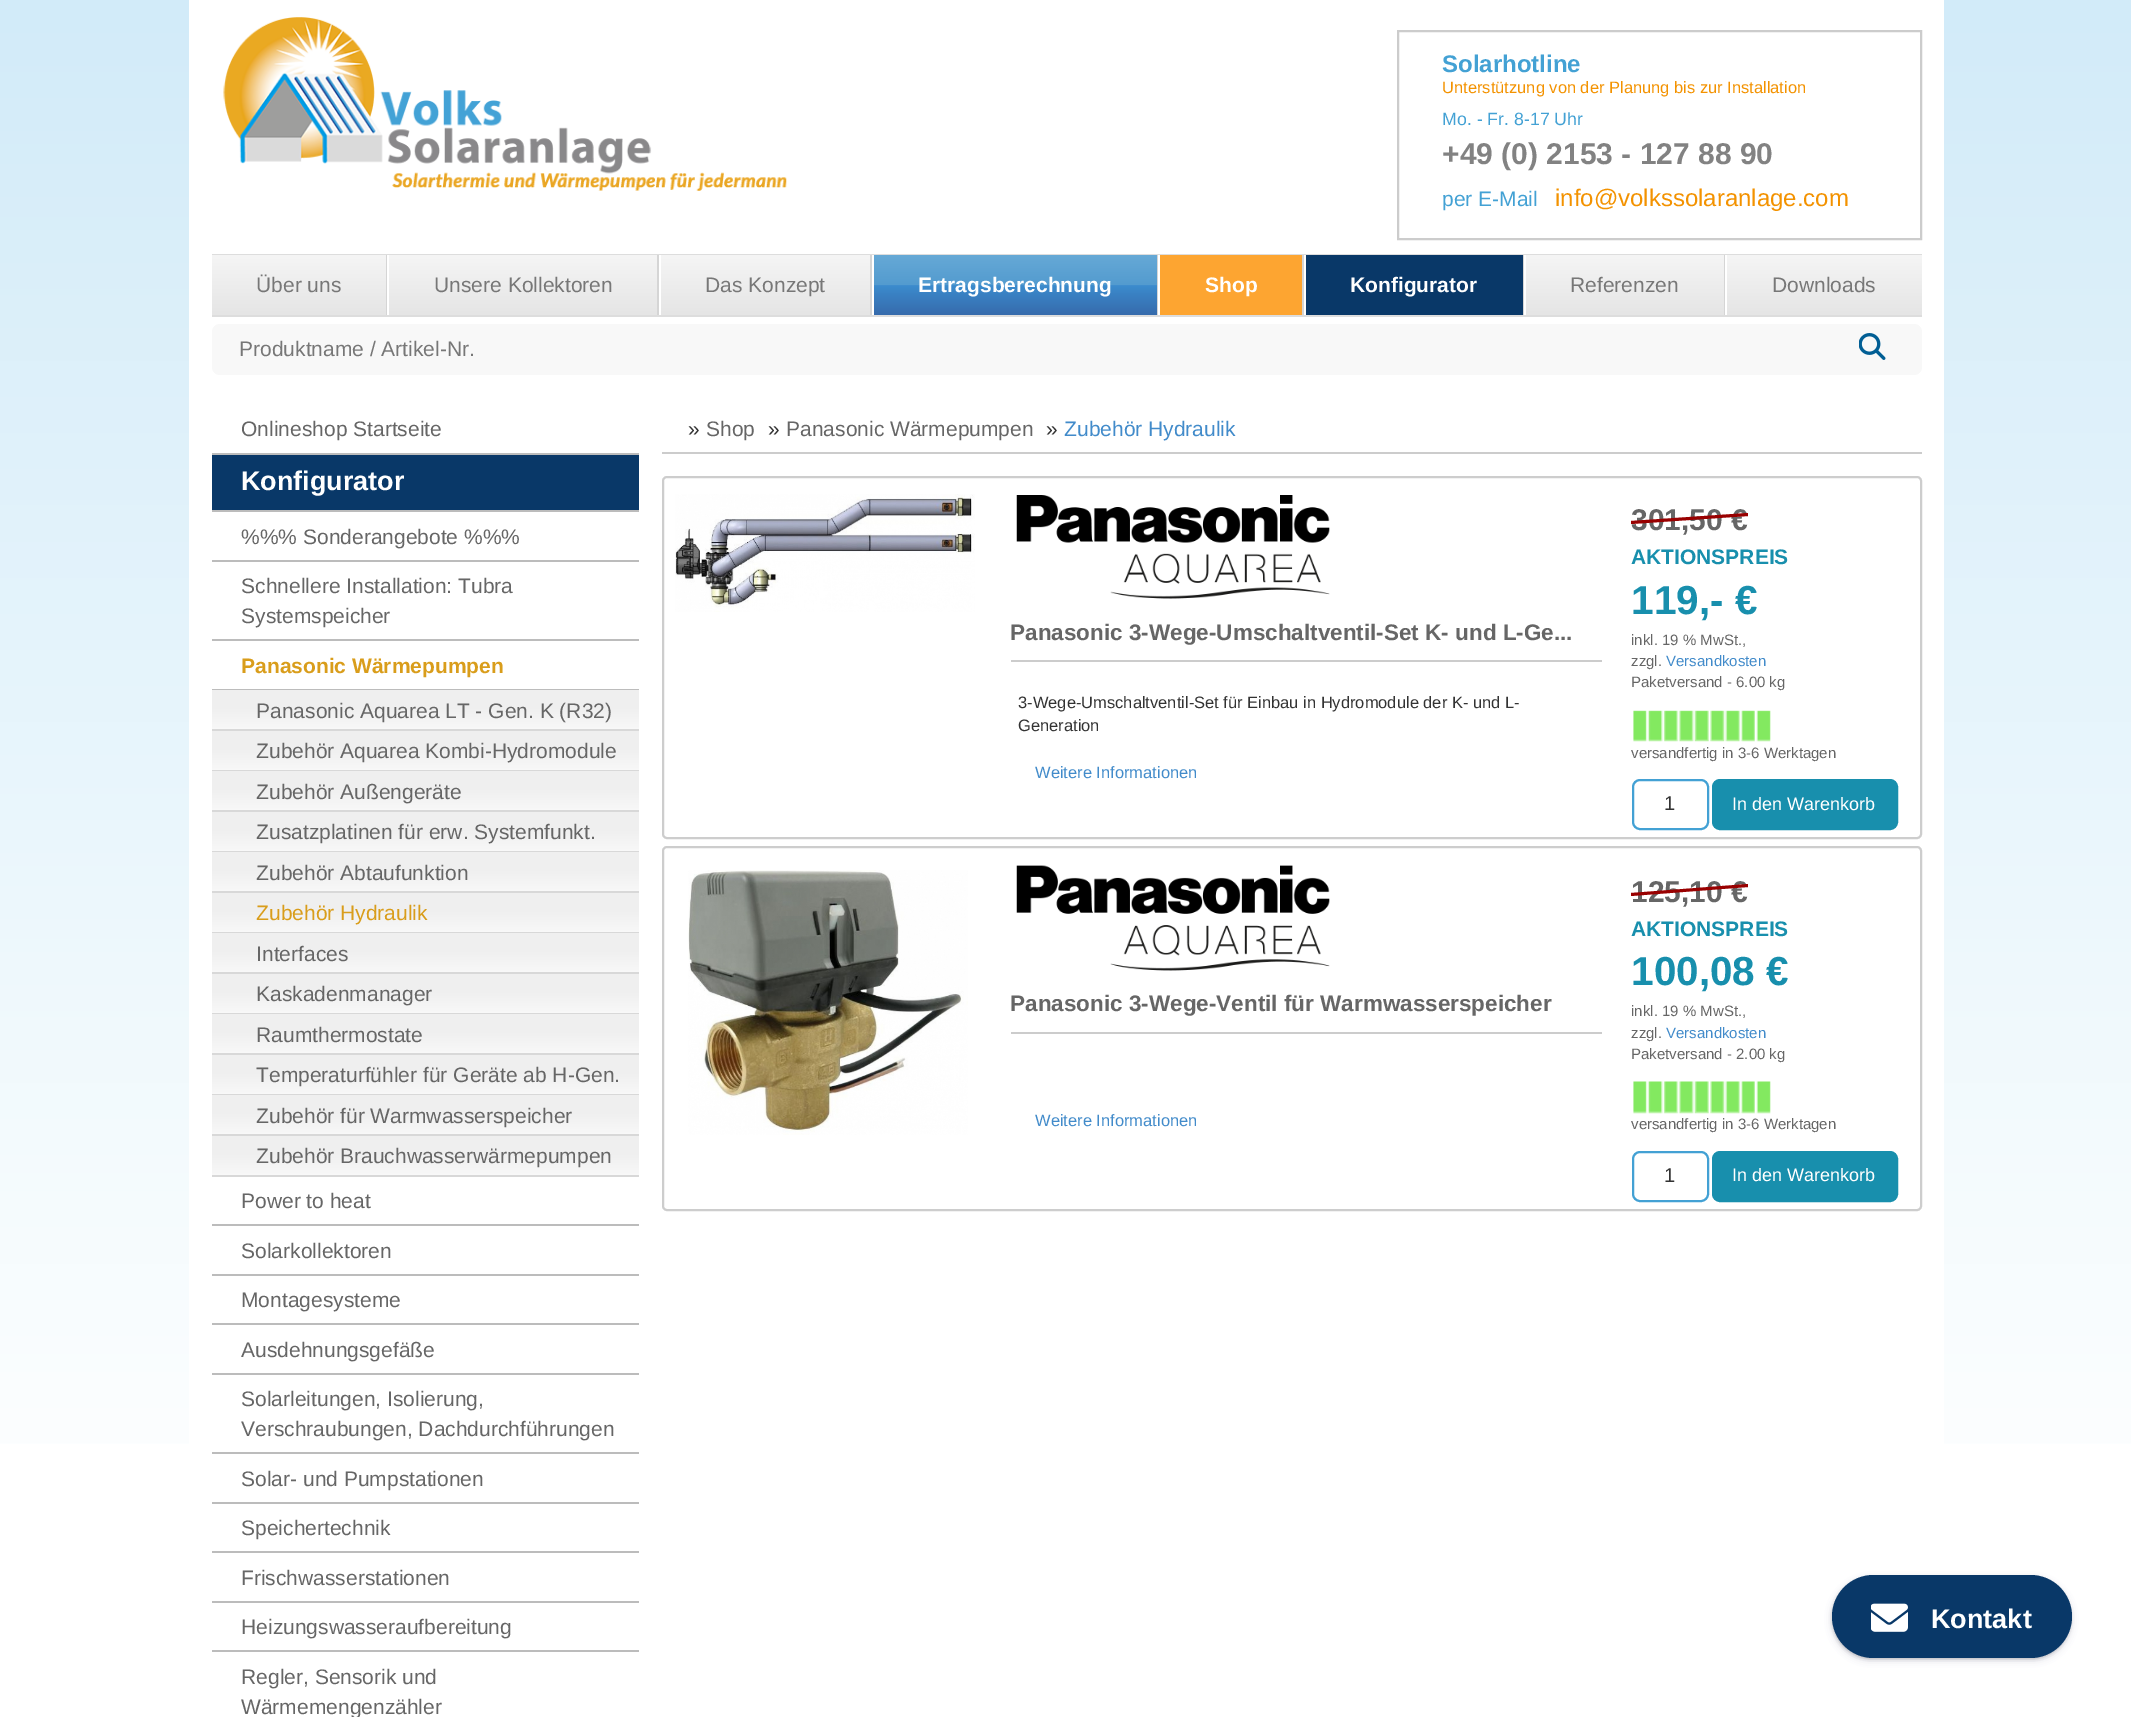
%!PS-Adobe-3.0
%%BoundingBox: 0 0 2131 1717
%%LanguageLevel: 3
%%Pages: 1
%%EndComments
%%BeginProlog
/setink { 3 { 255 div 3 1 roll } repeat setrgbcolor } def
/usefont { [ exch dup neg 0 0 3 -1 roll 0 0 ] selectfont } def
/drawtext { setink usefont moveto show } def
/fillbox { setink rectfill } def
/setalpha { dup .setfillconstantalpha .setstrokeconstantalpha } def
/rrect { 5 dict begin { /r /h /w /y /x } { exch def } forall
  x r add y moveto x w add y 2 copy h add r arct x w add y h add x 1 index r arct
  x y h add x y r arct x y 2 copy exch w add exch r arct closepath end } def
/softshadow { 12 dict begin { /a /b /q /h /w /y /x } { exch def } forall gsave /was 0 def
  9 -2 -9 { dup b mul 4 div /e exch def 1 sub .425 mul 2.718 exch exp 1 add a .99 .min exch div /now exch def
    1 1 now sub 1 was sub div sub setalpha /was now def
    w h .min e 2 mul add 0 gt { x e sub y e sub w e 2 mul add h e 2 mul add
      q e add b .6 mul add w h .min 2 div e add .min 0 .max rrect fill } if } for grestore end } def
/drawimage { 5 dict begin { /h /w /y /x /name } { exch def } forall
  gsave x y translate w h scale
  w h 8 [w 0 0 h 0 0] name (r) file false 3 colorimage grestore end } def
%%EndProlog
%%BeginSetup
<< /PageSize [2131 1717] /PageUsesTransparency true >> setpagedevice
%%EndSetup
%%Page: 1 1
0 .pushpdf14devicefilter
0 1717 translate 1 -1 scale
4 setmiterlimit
0 0 2131 1717 255 255 255 fillbox
gsave 0 0 moveto 2131 0 lineto 2131 1444 lineto 0 1444 lineto closepath clip newpath
<< /ShadingType 2 /ColorSpace /DeviceRGB /Coords [1066 0 1066 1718] /Extend [true true] /Function << /FunctionType 3 /Domain [0 1] /Functions [<< /FunctionType 2 /Domain [0 1] /C0 [0.824 0.922 0.976] /C1 [0.996 1 1] /N 1 >> << /FunctionType 2 /Domain [0 1] /C0 [0.996 1 1] /C1 [0.996 1 1] /N 1 >>] /Bounds [0.87] /Encode [0 1 0 1] >> >> shfill grestore
189 0 1755 1444 255 255 255 fillbox
(assets/img1.rgb) 223 17 564 174 drawimage
204 204 204 setink
2 setlinewidth
1398 31 523 208 rectstroke
(Solarhotline) 1442 72 /LiberationSans-Bold 24 67 161 212 drawtext
(Unterstützung von der Planung bis zur Installation) 1442 93 /LiberationSans-Regular 16.5 243 146 0 drawtext
(Mo. - Fr. 8-17 Uhr) 1442 125 /LiberationSans-Regular 17.75 67 161 212 drawtext
(+49 \(0\) 2153 - 127 88 90) 1442 164 /LiberationSans-Bold 30 130 130 130 drawtext
(per E-Mail) 1442 206 /LiberationSans-Regular 21 67 161 212 drawtext
(info@volkssolaranlage.com) 1555 206 /LiberationSans-Regular 24 243 146 0 drawtext
212 254 1710 1 221 221 221 fillbox
gsave 212 255 moveto 386 255 lineto 386 315 lineto 212 315 lineto closepath clip newpath
<< /ShadingType 2 /ColorSpace /DeviceRGB /Coords [299 255 299 315] /Extend [true true] /Function << /FunctionType 2 /Domain [0 1] /C0 [0.961 0.961 0.961] /C1 [0.898 0.898 0.898] /N 1 >> >> shfill grestore
386 255 1 60 213 213 213 fillbox
(Über uns) 256 292 /LiberationSans-Regular 21 119 119 119 drawtext
gsave 389 255 moveto 657 255 lineto 657 315 lineto 389 315 lineto closepath clip newpath
<< /ShadingType 2 /ColorSpace /DeviceRGB /Coords [523 255 523 315] /Extend [true true] /Function << /FunctionType 2 /Domain [0 1] /C0 [0.961 0.961 0.961] /C1 [0.898 0.898 0.898] /N 1 >> >> shfill grestore
657 255 2 60 213 213 213 fillbox
(Unsere Kollektoren) 434 292 /LiberationSans-Regular 21 119 119 119 drawtext
gsave 661 255 moveto 870 255 lineto 870 315 lineto 661 315 lineto closepath clip newpath
<< /ShadingType 2 /ColorSpace /DeviceRGB /Coords [765 255 765 315] /Extend [true true] /Function << /FunctionType 2 /Domain [0 1] /C0 [0.961 0.961 0.961] /C1 [0.898 0.898 0.898] /N 1 >> >> shfill grestore
870 255 2 60 213 213 213 fillbox
(Das Konzept) 705 292 /LiberationSans-Regular 21 119 119 119 drawtext
gsave 874 255 moveto 1157 255 lineto 1157 315 lineto 874 315 lineto closepath clip newpath
<< /ShadingType 2 /ColorSpace /DeviceRGB /Coords [1015 255 1015 315] /Extend [true true] /Function << /FunctionType 3 /Domain [0 1] /Functions [<< /FunctionType 2 /Domain [0 1] /C0 [0.4 0.663 0.839] /C1 [0.325 0.608 0.812] /N 1 >> << /FunctionType 2 /Domain [0 1] /C0 [0.325 0.608 0.812] /C1 [0.231 0.545 0.804] /N 1 >> << /FunctionType 2 /Domain [0 1] /C0 [0.231 0.545 0.804] /C1 [0.212 0.42 0.675] /N 1 >>] /Bounds [0.5 0.51] /Encode [0 1 0 1 0 1] >> >> shfill grestore
1157 255 1 60 213 213 213 fillbox
(Ertragsberechnung) 918 292 /LiberationSans-Bold 21 255 255 255 drawtext
1160 255 142 60 253 165 49 fillbox
1302 255 2 60 213 213 213 fillbox
(Shop) 1205 292 /LiberationSans-Bold 21 255 255 255 drawtext
1306 255 217 60 9 56 104 fillbox
1523 255 1 60 213 213 213 fillbox
(Konfigurator) 1350 292 /LiberationSans-Bold 21 255 255 255 drawtext
gsave 1526 255 moveto 1724 255 lineto 1724 315 lineto 1526 315 lineto closepath clip newpath
<< /ShadingType 2 /ColorSpace /DeviceRGB /Coords [1625 255 1625 315] /Extend [true true] /Function << /FunctionType 2 /Domain [0 1] /C0 [0.961 0.961 0.961] /C1 [0.898 0.898 0.898] /N 1 >> >> shfill grestore
1724 255 1 60 213 213 213 fillbox
(Referenzen) 1570 292 /LiberationSans-Regular 21 119 119 119 drawtext
gsave 1727 255 moveto 1922 255 lineto 1922 315 lineto 1727 315 lineto closepath clip newpath
<< /ShadingType 2 /ColorSpace /DeviceRGB /Coords [1824 255 1824 315] /Extend [true true] /Function << /FunctionType 2 /Domain [0 1] /C0 [0.961 0.961 0.961] /C1 [0.898 0.898 0.898] /N 1 >> >> shfill grestore
(Downloads) 1772 292 /LiberationSans-Regular 21 119 119 119 drawtext
212 315 1710 2 221 221 221 fillbox
248 248 248 setink
212 324 1710 51 8 rrect fill
(Produktname / Artikel-Nr.) 239 356 /LiberationSans-Regular 21 119 119 119 drawtext
(assets/img2.rgb) 1859 333 27 27 drawimage
212 453 427 2 188 188 188 fillbox
(Onlineshop Startseite) 241 436 /LiberationSans-Regular 21 102 102 102 drawtext
212 455 427 55 9 56 104 fillbox
212 510 427 2 188 188 188 fillbox
(Konfigurator) 241 490 /LiberationSans-Bold 27 255 255 255 drawtext
212 560 427 2 188 188 188 fillbox
(%%% Sonderangebote %%%) 241 544 /LiberationSans-Regular 21 102 102 102 drawtext
212 639 427 2 188 188 188 fillbox
(Schnellere Installation: Tubra) 241 593 /LiberationSans-Regular 21 102 102 102 drawtext
(Systemspeicher) 241 623 /LiberationSans-Regular 21 102 102 102 drawtext
212 689 427 1 188 188 188 fillbox
(Panasonic Wärmepumpen) 241 673 /LiberationSans-Bold 21 217 157 27 drawtext
gsave 212 690 moveto 639 690 lineto 639 729 lineto 212 729 lineto closepath clip newpath
<< /ShadingType 2 /ColorSpace /DeviceRGB /Coords [425 690 425 729] /Extend [true true] /Function << /FunctionType 3 /Domain [0 1] /Functions [<< /FunctionType 2 /Domain [0 1] /C0 [0.937 0.937 0.937] /C1 [0.937 0.937 0.937] /N 1 >> << /FunctionType 2 /Domain [0 1] /C0 [0.937 0.937 0.937] /C1 [0.973 0.973 0.973] /N 1 >>] /Bounds [0.41] /Encode [0 1 0 1] >> >> shfill grestore
212 729 427 2 216 216 216 fillbox
(Panasonic Aquarea LT - Gen. K \(R32\)) 256 718 /LiberationSans-Regular 21 102 102 102 drawtext
gsave 212 731 moveto 639 731 lineto 639 770 lineto 212 770 lineto closepath clip newpath
<< /ShadingType 2 /ColorSpace /DeviceRGB /Coords [425 731 425 770] /Extend [true true] /Function << /FunctionType 3 /Domain [0 1] /Functions [<< /FunctionType 2 /Domain [0 1] /C0 [0.937 0.937 0.937] /C1 [0.937 0.937 0.937] /N 1 >> << /FunctionType 2 /Domain [0 1] /C0 [0.937 0.937 0.937] /C1 [0.973 0.973 0.973] /N 1 >>] /Bounds [0.41] /Encode [0 1 0 1] >> >> shfill grestore
212 770 427 1 216 216 216 fillbox
(Zubehör Aquarea Kombi-Hydromodule) 256 758 /LiberationSans-Regular 21 102 102 102 drawtext
gsave 212 771 moveto 639 771 lineto 639 810 lineto 212 810 lineto closepath clip newpath
<< /ShadingType 2 /ColorSpace /DeviceRGB /Coords [425 771 425 810] /Extend [true true] /Function << /FunctionType 3 /Domain [0 1] /Functions [<< /FunctionType 2 /Domain [0 1] /C0 [0.937 0.937 0.937] /C1 [0.937 0.937 0.937] /N 1 >> << /FunctionType 2 /Domain [0 1] /C0 [0.937 0.937 0.937] /C1 [0.973 0.973 0.973] /N 1 >>] /Bounds [0.41] /Encode [0 1 0 1] >> >> shfill grestore
212 810 427 2 216 216 216 fillbox
(Zubehör Außengeräte) 256 799 /LiberationSans-Regular 21 102 102 102 drawtext
gsave 212 812 moveto 639 812 lineto 639 851 lineto 212 851 lineto closepath clip newpath
<< /ShadingType 2 /ColorSpace /DeviceRGB /Coords [425 812 425 851] /Extend [true true] /Function << /FunctionType 3 /Domain [0 1] /Functions [<< /FunctionType 2 /Domain [0 1] /C0 [0.937 0.937 0.937] /C1 [0.937 0.937 0.937] /N 1 >> << /FunctionType 2 /Domain [0 1] /C0 [0.937 0.937 0.937] /C1 [0.973 0.973 0.973] /N 1 >>] /Bounds [0.41] /Encode [0 1 0 1] >> >> shfill grestore
212 851 427 1 216 216 216 fillbox
(Zusatzplatinen für erw. Systemfunkt.) 256 839 /LiberationSans-Regular 21 102 102 102 drawtext
gsave 212 852 moveto 639 852 lineto 639 891 lineto 212 891 lineto closepath clip newpath
<< /ShadingType 2 /ColorSpace /DeviceRGB /Coords [425 852 425 891] /Extend [true true] /Function << /FunctionType 3 /Domain [0 1] /Functions [<< /FunctionType 2 /Domain [0 1] /C0 [0.937 0.937 0.937] /C1 [0.937 0.937 0.937] /N 1 >> << /FunctionType 2 /Domain [0 1] /C0 [0.937 0.937 0.937] /C1 [0.973 0.973 0.973] /N 1 >>] /Bounds [0.41] /Encode [0 1 0 1] >> >> shfill grestore
212 891 427 2 216 216 216 fillbox
(Zubehör Abtaufunktion) 256 880 /LiberationSans-Regular 21 102 102 102 drawtext
gsave 212 893 moveto 639 893 lineto 639 932 lineto 212 932 lineto closepath clip newpath
<< /ShadingType 2 /ColorSpace /DeviceRGB /Coords [425 893 425 932] /Extend [true true] /Function << /FunctionType 3 /Domain [0 1] /Functions [<< /FunctionType 2 /Domain [0 1] /C0 [0.937 0.937 0.937] /C1 [0.937 0.937 0.937] /N 1 >> << /FunctionType 2 /Domain [0 1] /C0 [0.937 0.937 0.937] /C1 [0.973 0.973 0.973] /N 1 >>] /Bounds [0.41] /Encode [0 1 0 1] >> >> shfill grestore
212 932 427 1 216 216 216 fillbox
(Zubehör Hydraulik) 256 920 /LiberationSans-Regular 21 217 157 27 drawtext
gsave 212 933 moveto 639 933 lineto 639 972 lineto 212 972 lineto closepath clip newpath
<< /ShadingType 2 /ColorSpace /DeviceRGB /Coords [425 933 425 972] /Extend [true true] /Function << /FunctionType 3 /Domain [0 1] /Functions [<< /FunctionType 2 /Domain [0 1] /C0 [0.937 0.937 0.937] /C1 [0.937 0.937 0.937] /N 1 >> << /FunctionType 2 /Domain [0 1] /C0 [0.937 0.937 0.937] /C1 [0.973 0.973 0.973] /N 1 >>] /Bounds [0.41] /Encode [0 1 0 1] >> >> shfill grestore
212 972 427 2 216 216 216 fillbox
(Interfaces) 256 961 /LiberationSans-Regular 21 102 102 102 drawtext
gsave 212 974 moveto 639 974 lineto 639 1013 lineto 212 1013 lineto closepath clip newpath
<< /ShadingType 2 /ColorSpace /DeviceRGB /Coords [425 974 425 1013] /Extend [true true] /Function << /FunctionType 3 /Domain [0 1] /Functions [<< /FunctionType 2 /Domain [0 1] /C0 [0.937 0.937 0.937] /C1 [0.937 0.937 0.937] /N 1 >> << /FunctionType 2 /Domain [0 1] /C0 [0.937 0.937 0.937] /C1 [0.973 0.973 0.973] /N 1 >>] /Bounds [0.41] /Encode [0 1 0 1] >> >> shfill grestore
212 1013 427 1 216 216 216 fillbox
(Kaskadenmanager) 256 1001 /LiberationSans-Regular 21 102 102 102 drawtext
gsave 212 1014 moveto 639 1014 lineto 639 1053 lineto 212 1053 lineto closepath clip newpath
<< /ShadingType 2 /ColorSpace /DeviceRGB /Coords [425 1014 425 1053] /Extend [true true] /Function << /FunctionType 3 /Domain [0 1] /Functions [<< /FunctionType 2 /Domain [0 1] /C0 [0.937 0.937 0.937] /C1 [0.937 0.937 0.937] /N 1 >> << /FunctionType 2 /Domain [0 1] /C0 [0.937 0.937 0.937] /C1 [0.973 0.973 0.973] /N 1 >>] /Bounds [0.41] /Encode [0 1 0 1] >> >> shfill grestore
212 1053 427 2 216 216 216 fillbox
(Raumthermostate) 256 1042 /LiberationSans-Regular 21 102 102 102 drawtext
gsave 212 1055 moveto 639 1055 lineto 639 1094 lineto 212 1094 lineto closepath clip newpath
<< /ShadingType 2 /ColorSpace /DeviceRGB /Coords [425 1055 425 1094] /Extend [true true] /Function << /FunctionType 3 /Domain [0 1] /Functions [<< /FunctionType 2 /Domain [0 1] /C0 [0.937 0.937 0.937] /C1 [0.937 0.937 0.937] /N 1 >> << /FunctionType 2 /Domain [0 1] /C0 [0.937 0.937 0.937] /C1 [0.973 0.973 0.973] /N 1 >>] /Bounds [0.41] /Encode [0 1 0 1] >> >> shfill grestore
212 1094 427 1 216 216 216 fillbox
(Temperaturfühler für Geräte ab H-Gen.) 256 1082 /LiberationSans-Regular 21 102 102 102 drawtext
gsave 212 1095 moveto 639 1095 lineto 639 1134 lineto 212 1134 lineto closepath clip newpath
<< /ShadingType 2 /ColorSpace /DeviceRGB /Coords [425 1095 425 1134] /Extend [true true] /Function << /FunctionType 3 /Domain [0 1] /Functions [<< /FunctionType 2 /Domain [0 1] /C0 [0.937 0.937 0.937] /C1 [0.937 0.937 0.937] /N 1 >> << /FunctionType 2 /Domain [0 1] /C0 [0.937 0.937 0.937] /C1 [0.973 0.973 0.973] /N 1 >>] /Bounds [0.41] /Encode [0 1 0 1] >> >> shfill grestore
212 1134 427 2 216 216 216 fillbox
(Zubehör für Warmwasserspeicher) 256 1123 /LiberationSans-Regular 21 102 102 102 drawtext
gsave 212 1136 moveto 639 1136 lineto 639 1175 lineto 212 1175 lineto closepath clip newpath
<< /ShadingType 2 /ColorSpace /DeviceRGB /Coords [425 1136 425 1175] /Extend [true true] /Function << /FunctionType 3 /Domain [0 1] /Functions [<< /FunctionType 2 /Domain [0 1] /C0 [0.937 0.937 0.937] /C1 [0.937 0.937 0.937] /N 1 >> << /FunctionType 2 /Domain [0 1] /C0 [0.937 0.937 0.937] /C1 [0.973 0.973 0.973] /N 1 >>] /Bounds [0.41] /Encode [0 1 0 1] >> >> shfill grestore
212 1175 427 2 216 216 216 fillbox
(Zubehör Brauchwasserwärmepumpen) 256 1163 /LiberationSans-Regular 21 102 102 102 drawtext
212 1224 427 2 188 188 188 fillbox
(Power to heat) 241 1208 /LiberationSans-Regular 21 102 102 102 drawtext
212 1274 427 2 188 188 188 fillbox
(Solarkollektoren) 241 1258 /LiberationSans-Regular 21 102 102 102 drawtext
212 1323 427 2 188 188 188 fillbox
(Montagesysteme) 241 1307 /LiberationSans-Regular 21 102 102 102 drawtext
212 1373 427 2 188 188 188 fillbox
(Ausdehnungsgefäße) 241 1357 /LiberationSans-Regular 21 102 102 102 drawtext
212 1452 427 2 188 188 188 fillbox
(Solarleitungen, Isolierung,) 241 1406 /LiberationSans-Regular 21 102 102 102 drawtext
(Verschraubungen, Dachdurchführungen) 241 1436 /LiberationSans-Regular 21 102 102 102 drawtext
212 1502 427 2 188 188 188 fillbox
(Solar- und Pumpstationen) 241 1486 /LiberationSans-Regular 21 102 102 102 drawtext
212 1551 427 2 188 188 188 fillbox
(Speichertechnik) 241 1535 /LiberationSans-Regular 21 102 102 102 drawtext
212 1601 427 2 188 188 188 fillbox
(Frischwasserstationen) 241 1585 /LiberationSans-Regular 21 102 102 102 drawtext
212 1650 427 2 188 188 188 fillbox
(Heizungswasseraufbereitung) 241 1634 /LiberationSans-Regular 21 102 102 102 drawtext
(Regler, Sensorik und) 241 1684 /LiberationSans-Regular 21 102 102 102 drawtext
(Wärmemengenzähler) 241 1714 /LiberationSans-Regular 21 102 102 102 drawtext
662 452 1260 2 204 204 204 fillbox
(») 688 436 /LiberationSans-Regular 21 51 51 51 drawtext
(Shop) 706 436 /LiberationSans-Regular 21 102 102 102 drawtext
(») 768 436 /LiberationSans-Regular 21 51 51 51 drawtext
(Panasonic Wärmepumpen) 786 436 /LiberationSans-Regular 21 102 102 102 drawtext
(») 1046 436 /LiberationSans-Regular 21 51 51 51 drawtext
(Zubehör Hydraulik) 1064 436 /LiberationSans-Regular 21 66 139 202 drawtext
205 205 205 setink
663 477 1258 361 4 rrect stroke
(assets/img3.rgb) 675 494 300 118 drawimage
(assets/img4.rgb) 1016 495 314 104 drawimage
1011 660 591 2 204 204 204 fillbox
(Panasonic 3-Wege-Umschaltventil-Set K- und L-Ge...) 1010 640 /LiberationSans-Bold 22.5 102 102 102 drawtext
(3-Wege-Umschaltventil-Set für Einbau in Hydromodule der K- und L-) 1018 708 /LiberationSans-Regular 16.5 51 51 51 drawtext
(Generation) 1018 731 /LiberationSans-Regular 16.5 51 51 51 drawtext
(Weitere Informationen) 1035 778 /LiberationSans-Regular 16.5 66 139 202 drawtext
(301,50 €) 1631 530 /LiberationSans-Bold 30 102 102 102 drawtext
153 0 0 setink
1631 521 moveto 1748 513 lineto 1748 516 lineto 1631 524 lineto closepath fill
(AKTIONSPREIS) 1631 564 /LiberationSans-Bold 21 24 143 173 drawtext
(119,- €) 1631 614 /LiberationSans-Bold 40.5 24 143 173 drawtext
(inkl. 19 % MwSt.,) 1631 645 /LiberationSans-Regular 15 102 102 102 drawtext
(zzgl.) 1631 666 /LiberationSans-Regular 15 102 102 102 drawtext
(Versandkosten) 1666 666 /LiberationSans-Regular 15 66 139 202 drawtext
(Paketversand - 6.00 kg) 1631 687 /LiberationSans-Regular 15 102 102 102 drawtext
(assets/img5.rgb) 1633 710 138 32 drawimage
(versandfertig in 3-6 Werktagen) 1631 758 /LiberationSans-Regular 15 102 102 102 drawtext
67 161 212 setink
1633 780 75 49 7 rrect stroke
(1) 1664 810 /LiberationSans-Regular 20 51 51 51 drawtext
24 143 173 setink
1713 780 184 49 7 rrect gsave fill grestore
stroke
(In den Warenkorb) 1732 810 /LiberationSans-Regular 18 255 255 255 drawtext
205 205 205 setink
663 847 1258 363 4 rrect stroke
(assets/img6.rgb) 688 870 280 265 drawimage
(assets/img7.rgb) 1016 865 314 106 drawimage
1011 1032 591 2 204 204 204 fillbox
(Panasonic 3-Wege-Ventil für Warmwasserspeicher) 1010 1011 /LiberationSans-Bold 22.5 102 102 102 drawtext
(Weitere Informationen) 1035 1126 /LiberationSans-Regular 16.5 66 139 202 drawtext
(125,10 €) 1631 902 /LiberationSans-Bold 30 102 102 102 drawtext
153 0 0 setink
1631 893 moveto 1748 884 lineto 1748 887 lineto 1631 896 lineto closepath fill
(AKTIONSPREIS) 1631 936 /LiberationSans-Bold 21 24 143 173 drawtext
(100,08 €) 1631 985 /LiberationSans-Bold 40.5 24 143 173 drawtext
(inkl. 19 % MwSt.,) 1631 1016 /LiberationSans-Regular 15 102 102 102 drawtext
(zzgl.) 1631 1038 /LiberationSans-Regular 15 102 102 102 drawtext
(Versandkosten) 1666 1038 /LiberationSans-Regular 15 66 139 202 drawtext
(Paketversand - 2.00 kg) 1631 1059 /LiberationSans-Regular 15 102 102 102 drawtext
(assets/img8.rgb) 1633 1081 138 33 drawimage
(versandfertig in 3-6 Werktagen) 1631 1129 /LiberationSans-Regular 15 102 102 102 drawtext
67 161 212 setink
1633 1152 75 49 7 rrect stroke
(1) 1664 1182 /LiberationSans-Regular 20 51 51 51 drawtext
24 143 173 setink
1713 1152 184 49 7 rrect gsave fill grestore
stroke
(In den Warenkorb) 1732 1181 /LiberationSans-Regular 18 255 255 255 drawtext
0 0 0 setink
1833 1578 237 80 40 2 0.3 softshadow
50 50 93 setink
1833 1580 237 79 39.5 4 0.25 softshadow
9 56 104 setink
1832 1575 240 83 41.5 rrect fill
(assets/img9.rgb) 1871 1603 37 29 drawimage
(Kontakt) 1931 1628 /LiberationSans-Bold 27 255 255 255 drawtext
.poppdf14devicefilter showpage
%%EOF
